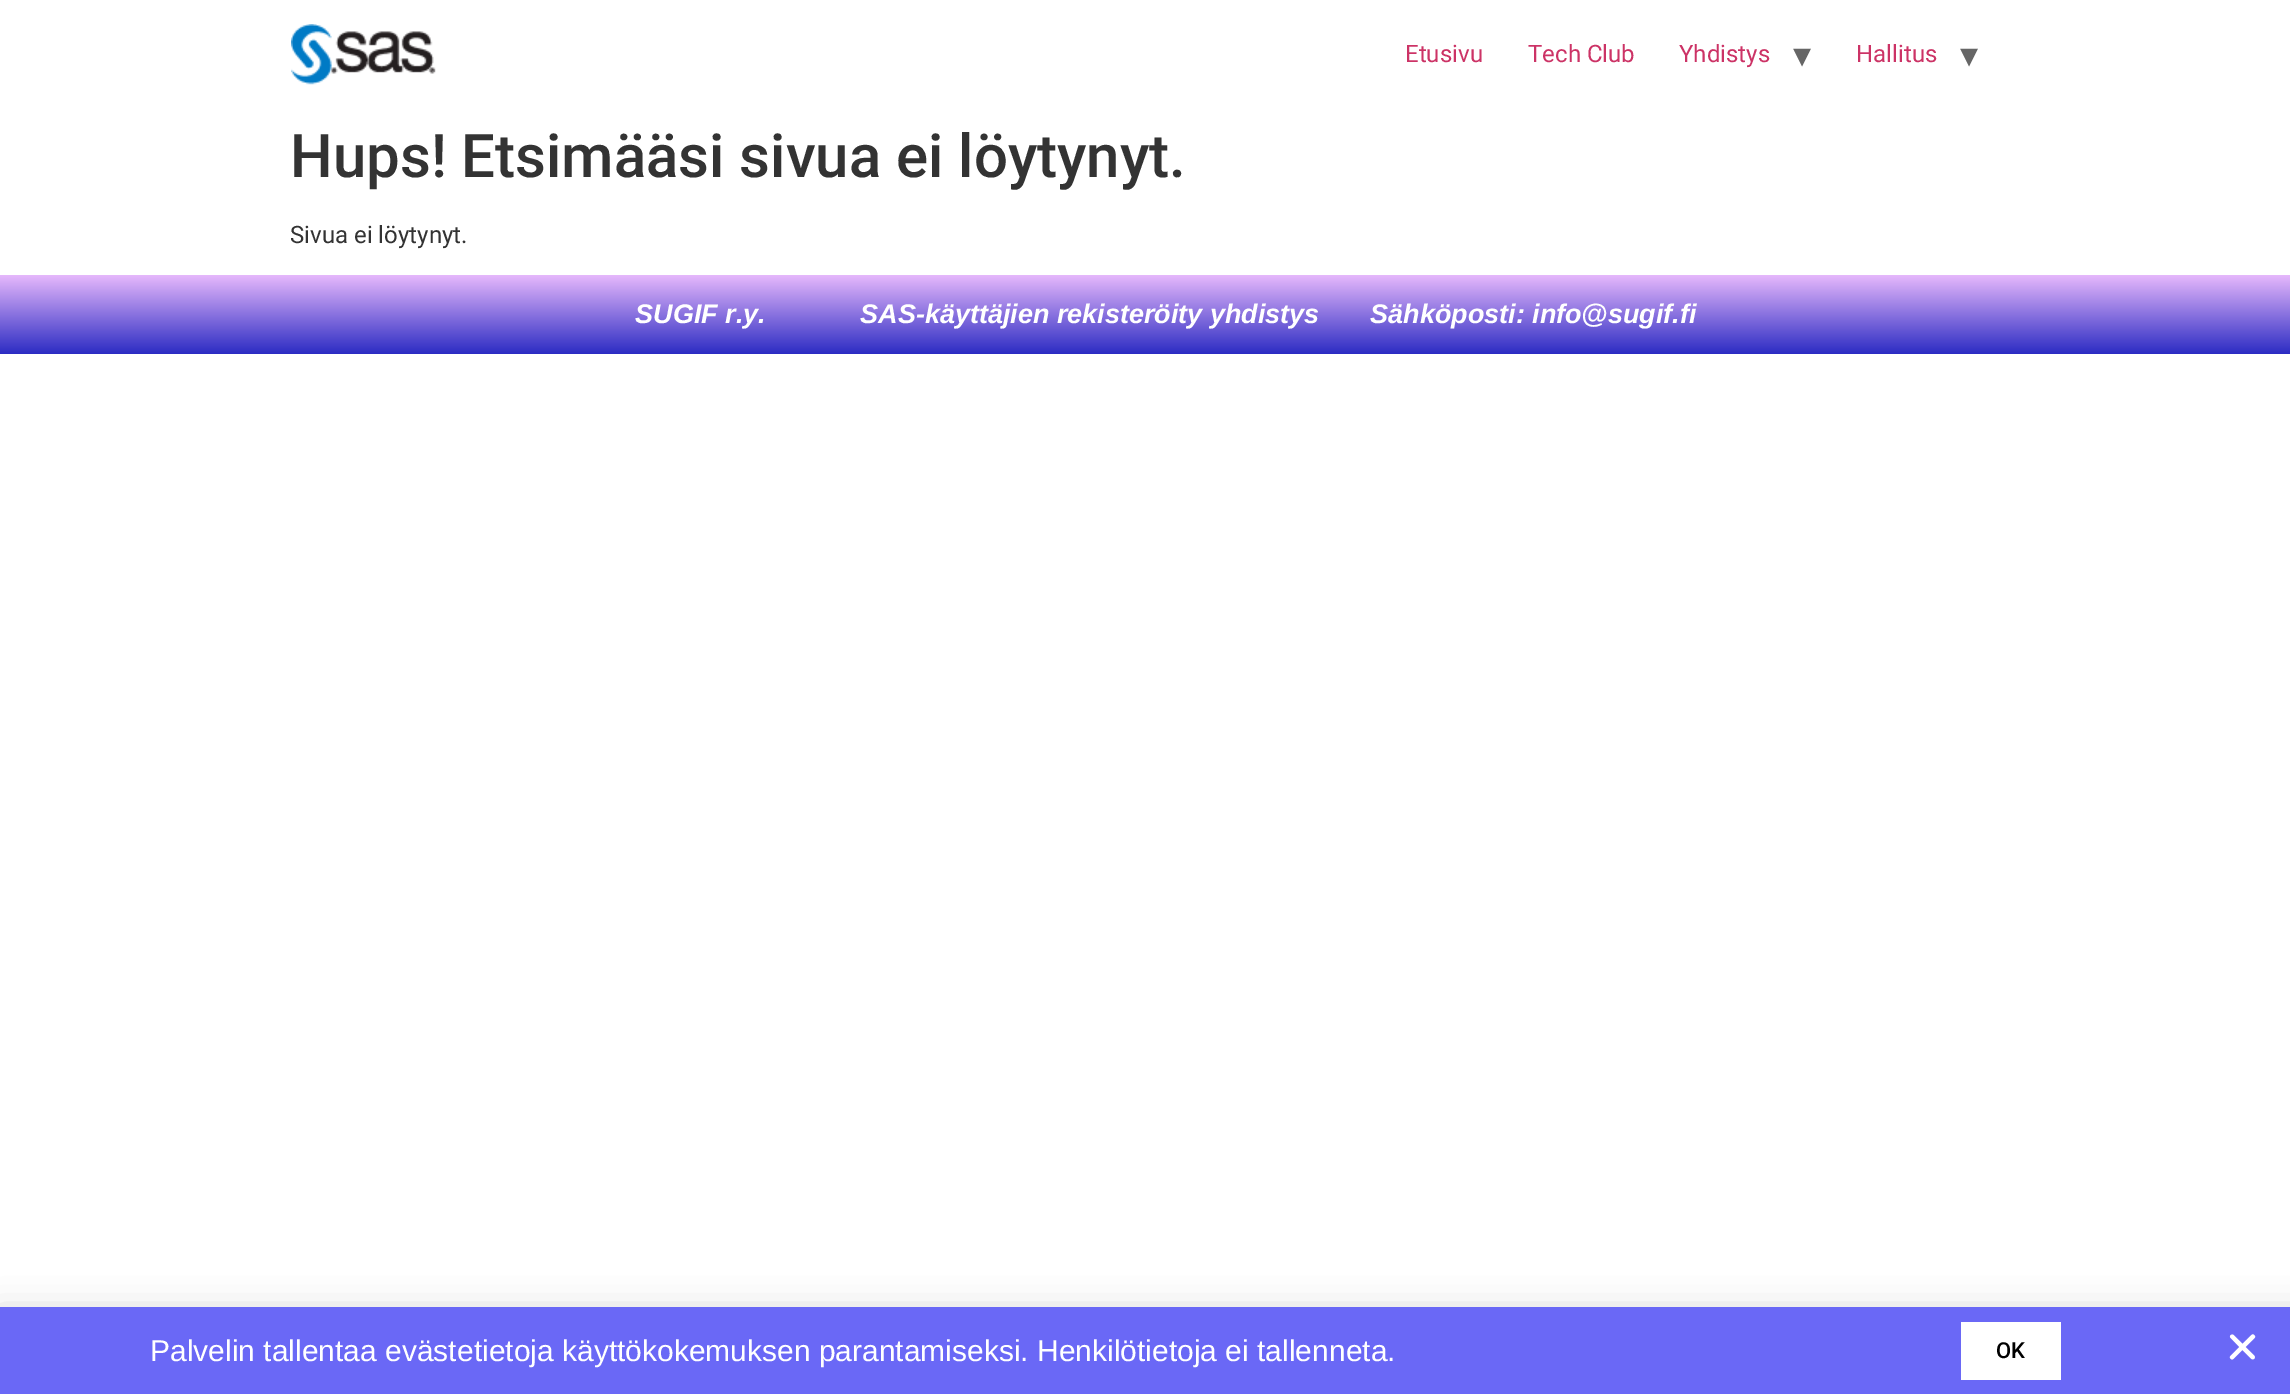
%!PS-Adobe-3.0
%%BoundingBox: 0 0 2290 1394
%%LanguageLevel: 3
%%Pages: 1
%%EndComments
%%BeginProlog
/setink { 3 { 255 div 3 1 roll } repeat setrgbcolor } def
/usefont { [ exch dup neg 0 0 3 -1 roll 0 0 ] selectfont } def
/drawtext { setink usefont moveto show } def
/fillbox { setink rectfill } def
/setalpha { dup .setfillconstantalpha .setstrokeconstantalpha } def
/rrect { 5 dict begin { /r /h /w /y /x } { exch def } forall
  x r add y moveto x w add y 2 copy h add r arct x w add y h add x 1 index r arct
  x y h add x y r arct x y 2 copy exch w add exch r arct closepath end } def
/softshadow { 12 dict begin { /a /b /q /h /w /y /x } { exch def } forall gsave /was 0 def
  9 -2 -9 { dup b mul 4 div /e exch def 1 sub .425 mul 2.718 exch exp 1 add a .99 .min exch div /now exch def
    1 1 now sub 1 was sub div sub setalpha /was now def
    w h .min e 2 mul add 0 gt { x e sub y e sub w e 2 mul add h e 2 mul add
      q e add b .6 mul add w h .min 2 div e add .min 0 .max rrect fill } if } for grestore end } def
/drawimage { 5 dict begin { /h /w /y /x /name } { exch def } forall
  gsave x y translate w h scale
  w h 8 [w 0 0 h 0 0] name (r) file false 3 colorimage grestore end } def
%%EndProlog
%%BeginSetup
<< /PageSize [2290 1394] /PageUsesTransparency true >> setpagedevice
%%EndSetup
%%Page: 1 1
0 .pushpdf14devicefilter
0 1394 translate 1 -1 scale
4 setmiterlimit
0 0 2290 1394 255 255 255 fillbox
(assets/img1.rgb) 291 24 145 61 drawimage
(Etusivu) 1405 62 /Roboto-Regular 24 204 51 102 drawtext
(Tech Club) 1528 62 /Roboto-Regular 24 204 51 102 drawtext
(Yhdistys) 1679 62 /Roboto-Regular 24 204 51 102 drawtext
(▾) 1793 67 /DejaVuSans-Regular 36 102 102 102 drawtext
(Hallitus) 1856 62 /Roboto-Regular 24 204 51 102 drawtext
(▾) 1960 67 /DejaVuSans-Regular 36 102 102 102 drawtext
(Hups! Etsimääsi sivua ei löytynyt.) 290 177 /Roboto-Medium 60 51 51 51 drawtext
(Sivua ei löytynyt.) 290 243 /Roboto-Regular 24 51 51 51 drawtext
gsave 0 275 moveto 2290 275 lineto 2290 354 lineto 0 354 lineto closepath clip newpath
<< /ShadingType 2 /ColorSpace /DeviceRGB /Coords [1145 274 1145 354] /Extend [true true] /Function << /FunctionType 2 /Domain [0 1] /C0 [0.91 0.729 0.992] /C1 [0.173 0.173 0.765] /N 1 >> >> shfill grestore
(SUGIF r.y.) 635 323 /LiberationSans-BoldItalic 27 255 255 255 drawtext
(SAS-käyttäjien rekisteröity yhdistys) 860 323 /LiberationSans-BoldItalic 27 255 255 255 drawtext
(Sähköposti: info@sugif.fi) 1370 323 /LiberationSans-BoldItalic 27 255 255 255 drawtext
0 0 0 setink
-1 1314 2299 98 0 17 0.2 softshadow
0 1307 2290 87 106 104 246 fillbox
(Palvelin tallentaa evästetietoja käyttökokemuksen parantamiseksi. Henkilötietoja ei tallenneta.) 150 1361 /LiberationSans-Regular 30 255 255 255 drawtext
1961 1322 100 58 255 255 255 fillbox
(OK) 1996 1358 /Roboto-Medium 22 0 0 0 drawtext
(assets/img2.rgb) 2229 1334 27 26 drawimage
.poppdf14devicefilter showpage
%%EOF
